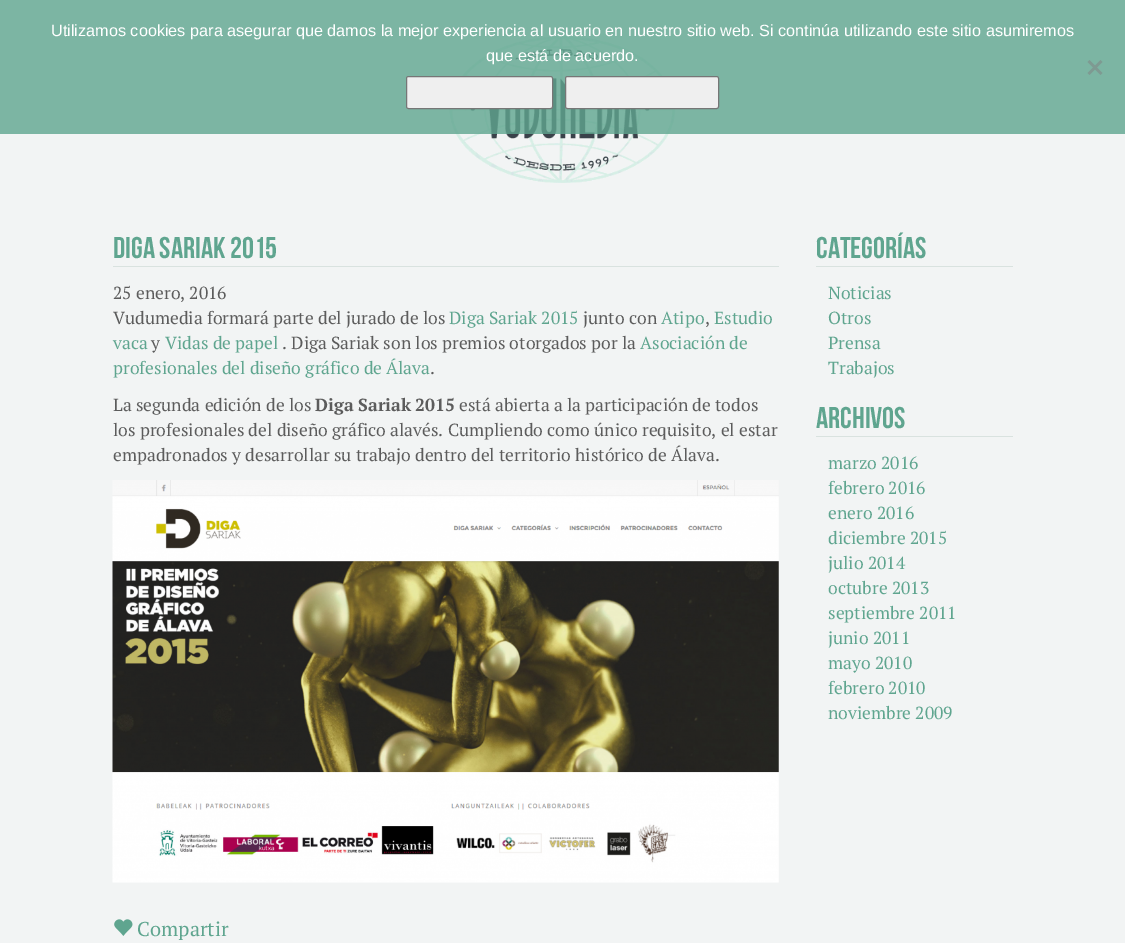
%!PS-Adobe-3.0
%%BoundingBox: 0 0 1125 943
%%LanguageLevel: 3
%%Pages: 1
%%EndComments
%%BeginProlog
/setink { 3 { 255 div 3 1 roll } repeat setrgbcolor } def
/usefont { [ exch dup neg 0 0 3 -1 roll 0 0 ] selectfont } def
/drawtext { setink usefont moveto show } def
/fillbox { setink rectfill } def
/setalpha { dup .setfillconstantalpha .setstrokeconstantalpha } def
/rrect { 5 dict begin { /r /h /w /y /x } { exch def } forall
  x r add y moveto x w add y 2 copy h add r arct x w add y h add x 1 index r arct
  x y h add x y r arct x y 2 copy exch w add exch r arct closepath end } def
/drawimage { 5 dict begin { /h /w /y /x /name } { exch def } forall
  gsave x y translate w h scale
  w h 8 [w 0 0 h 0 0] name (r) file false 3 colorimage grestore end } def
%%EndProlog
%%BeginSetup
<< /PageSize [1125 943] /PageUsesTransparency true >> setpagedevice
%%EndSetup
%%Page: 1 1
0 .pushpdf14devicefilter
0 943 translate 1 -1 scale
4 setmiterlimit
0 0 1125 943 242 244 244 fillbox
(assets/img1.rgb) 449 36 227 147 drawimage
0.8 setalpha
0 0 1125 134 95 165 143 fillbox
1 setalpha
(Utilizamos cookies para asegurar que damos la mejor experiencia al usuario en nuestro sitio web. Si continúa utilizando este sitio asumiremos) 51 36 /LiberationSans-Regular 16.25 255 255 255 drawtext
(que está de acuerdo.) 486 61 /LiberationSans-Regular 16.25 255 255 255 drawtext
126 154 146 setink
1100.5 60 moveto 1102.5 62 lineto 1089.5 75 lineto 1087.5 73 lineto closepath fill
1087.5 62 moveto 1089.5 60 lineto 1102.5 73 lineto 1100.5 75 lineto closepath fill
239 239 239 setink
406.5 76.5 146 32 2 rrect gsave fill grestore
118 118 118 setink
stroke
239 239 239 setink
565.5 76.5 153 32 2 rrect gsave fill grestore
118 118 118 setink
stroke
113 266 666 1 217 226 223 fillbox
(DIGA SARIAK 2015) 113 258 /BebasNeue-Regular 30 95 165 143 drawtext
(25 enero, 2016) 113 299 /PTSerif-Regular 17.5 92 92 92 drawtext
(Vudumedia formará parte del jurado de los) 113 324 /PTSerif-Regular 17.5 92 92 92 drawtext
(Diga Sariak 2015) 449 324 /PTSerif-Regular 17.5 95 165 143 drawtext
(junto con) 583 324 /PTSerif-Regular 17.5 92 92 92 drawtext
(Atipo) 661 324 /PTSerif-Regular 17.5 95 165 143 drawtext
(,) 705 324 /PTSerif-Regular 17.5 92 92 92 drawtext
(Estudio) 714 324 /PTSerif-Regular 17.5 95 165 143 drawtext
(vaca) 113 349 /PTSerif-Regular 17.5 95 165 143 drawtext
(y) 151 349 /PTSerif-Regular 17.5 92 92 92 drawtext
(Vidas de papel) 165 349 /PTSerif-Regular 17.5 95 165 143 drawtext
(. Diga Sariak son los premios otorgados por la) 282 349 /PTSerif-Regular 17.5 92 92 92 drawtext
(Asociación de) 640 349 /PTSerif-Regular 17.5 95 165 143 drawtext
(profesionales del diseño gráfico de Álava) 113 374 /PTSerif-Regular 17.5 95 165 143 drawtext
(.) 430 374 /PTSerif-Regular 17.5 92 92 92 drawtext
(La segunda edición de los) 113 411 /PTSerif-Regular 17.5 92 92 92 drawtext
(Diga Sariak) 315 411 /PTSerif-Bold 17.5 92 92 92 drawtext
(2015) 415 411 /PTSerif-Bold 17.5 92 92 92 drawtext
(está abierta a la participación de todos) 459 411 /PTSerif-Regular 17.5 92 92 92 drawtext
(los profesionales del diseño gráfico alavés. Cumpliendo como único requisito, el estar) 113 436 /PTSerif-Regular 17.5 92 92 92 drawtext
(empadronados y desarrollar su trabajo dentro del territorio histórico de Álava.) 113 461 /PTSerif-Regular 17.5 92 92 92 drawtext
(assets/img2.rgb) 112 480 667 403 drawimage
(assets/img3.rgb) 114 919 19 17 drawimage
(Compartir) 137 936 /PTSerif-Regular 20 95 165 143 drawtext
816 266 197 1 217 226 223 fillbox
(CATEGORÍAS) 816 258 /BebasNeue-Regular 30 95 165 143 drawtext
(Noticias) 828 299 /PTSerif-Regular 17.5 95 165 143 drawtext
(Otros) 828 324 /PTSerif-Regular 17.5 95 165 143 drawtext
(Prensa) 828 349 /PTSerif-Regular 17.5 95 165 143 drawtext
(Trabajos) 828 374 /PTSerif-Regular 17.5 95 165 143 drawtext
816 436 197 1 217 226 223 fillbox
(ARCHIVOS) 816 428 /BebasNeue-Regular 30 95 165 143 drawtext
(marzo 2016) 828 469 /PTSerif-Regular 17.5 95 165 143 drawtext
(febrero 2016) 828 494 /PTSerif-Regular 17.5 95 165 143 drawtext
(enero 2016) 828 519 /PTSerif-Regular 17.5 95 165 143 drawtext
(diciembre 2015) 828 544 /PTSerif-Regular 17.5 95 165 143 drawtext
(julio 2014) 828 569 /PTSerif-Regular 17.5 95 165 143 drawtext
(octubre 2013) 828 594 /PTSerif-Regular 17.5 95 165 143 drawtext
(septiembre 2011) 828 619 /PTSerif-Regular 17.5 95 165 143 drawtext
(junio 2011) 828 644 /PTSerif-Regular 17.5 95 165 143 drawtext
(mayo 2010) 828 669 /PTSerif-Regular 17.5 95 165 143 drawtext
(febrero 2010) 828 694 /PTSerif-Regular 17.5 95 165 143 drawtext
(noviembre 2009) 828 719 /PTSerif-Regular 17.5 95 165 143 drawtext
.poppdf14devicefilter showpage
%%EOF
